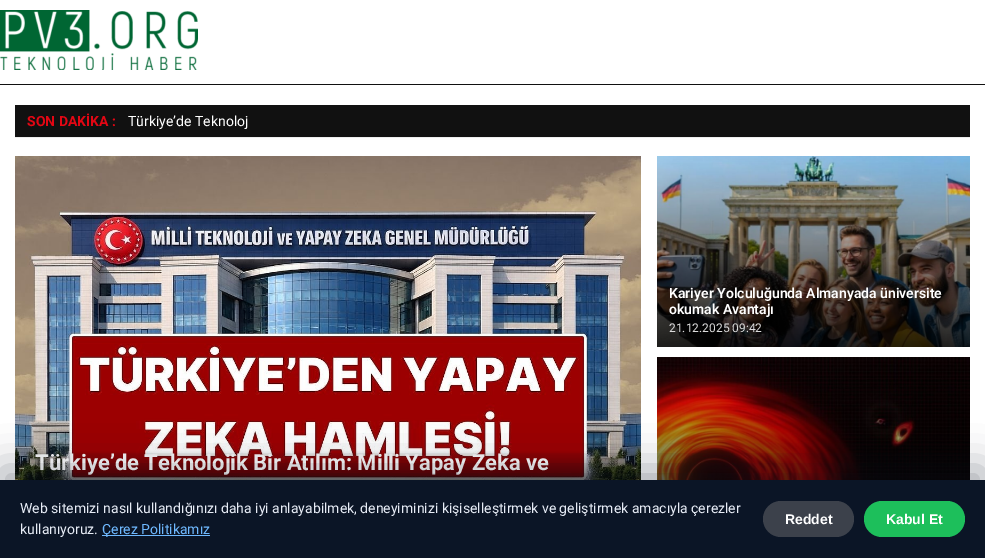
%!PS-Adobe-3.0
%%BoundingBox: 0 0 985 558
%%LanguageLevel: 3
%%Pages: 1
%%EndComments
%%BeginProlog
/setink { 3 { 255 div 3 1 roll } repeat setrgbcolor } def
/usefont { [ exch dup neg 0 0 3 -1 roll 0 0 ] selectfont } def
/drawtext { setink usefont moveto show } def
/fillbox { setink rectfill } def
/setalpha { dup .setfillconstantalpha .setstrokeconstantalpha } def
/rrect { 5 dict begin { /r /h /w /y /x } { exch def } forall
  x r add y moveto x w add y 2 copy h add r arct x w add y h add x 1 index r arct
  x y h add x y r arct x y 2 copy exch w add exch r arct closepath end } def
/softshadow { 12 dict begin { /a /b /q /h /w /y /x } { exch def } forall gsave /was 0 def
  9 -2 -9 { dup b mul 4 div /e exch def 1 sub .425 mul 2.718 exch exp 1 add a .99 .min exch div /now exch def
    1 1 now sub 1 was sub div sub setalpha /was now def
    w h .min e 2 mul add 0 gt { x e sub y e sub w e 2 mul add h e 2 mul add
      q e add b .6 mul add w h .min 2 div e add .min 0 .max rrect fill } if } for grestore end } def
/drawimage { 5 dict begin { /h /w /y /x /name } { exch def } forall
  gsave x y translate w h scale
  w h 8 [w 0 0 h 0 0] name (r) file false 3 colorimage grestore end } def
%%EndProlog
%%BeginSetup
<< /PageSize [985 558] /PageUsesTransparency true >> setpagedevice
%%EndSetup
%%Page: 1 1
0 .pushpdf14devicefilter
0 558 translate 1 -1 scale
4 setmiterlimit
0 0 985 558 255 255 255 fillbox
(assets/img1.rgb) 0 10 198 60 drawimage
0 84 985 1 17 17 17 fillbox
15 137 955 1 237 237 237 fillbox
15 105 955 32 17 17 17 fillbox
(SON DAKİKA :) 27 126 /Roboto-Bold 14 227 6 19 drawtext
(Türkiye’de Teknoloj) 128 126 /Roboto-Regular 14 255 255 255 drawtext
(assets/img2.rgb) 657 156 313 191 drawimage
(Kariyer Yolculuğunda Almanyada üniversite) 669 298 /Roboto-SemiBold 14 255 255 255 drawtext
(okumak Avantajı) 669 314 /Roboto-SemiBold 14 255 255 255 drawtext
(21.12.2025 09:42) 669 332 /Roboto-Regular 12 219 219 219 drawtext
(assets/img3.rgb) 657 357 313 123 drawimage
(assets/img4.rgb) 15 156 626 324 drawimage
(Türkiye’de Teknolojik Bir Atılım: Milli Yapay Zeka ve) 35 470 /Roboto-Bold 22 255 255 255 drawtext
12 21 34 setink
0 468 985 78 0 20 0.35 softshadow
0 480 985 78 11 21 38 fillbox
(Web sitemizi nasıl kullandığınızı daha iyi anlayabilmek, deneyiminizi kişiselleştirmek ve geliştirmek amacıyla çerezler) 20 513 /Roboto-Regular 14 231 236 246 drawtext
(kullanıyoruz.) 20 534 /Roboto-Regular 14 231 236 246 drawtext
102 535 108 1 111 185 255 fillbox
(Çerez Politikamız) 102 534 /Roboto-Regular 14 111 185 255 drawtext
60 65 75 setink
763 501 91 36 18 rrect fill
(Reddet) 785 524 /LiberationSans-Bold 14 255 255 255 drawtext
29 191 91 setink
864 501 101 36 18 rrect fill
(Kabul Et) 886 524 /LiberationSans-Bold 14 255 255 255 drawtext
.poppdf14devicefilter showpage
%%EOF
